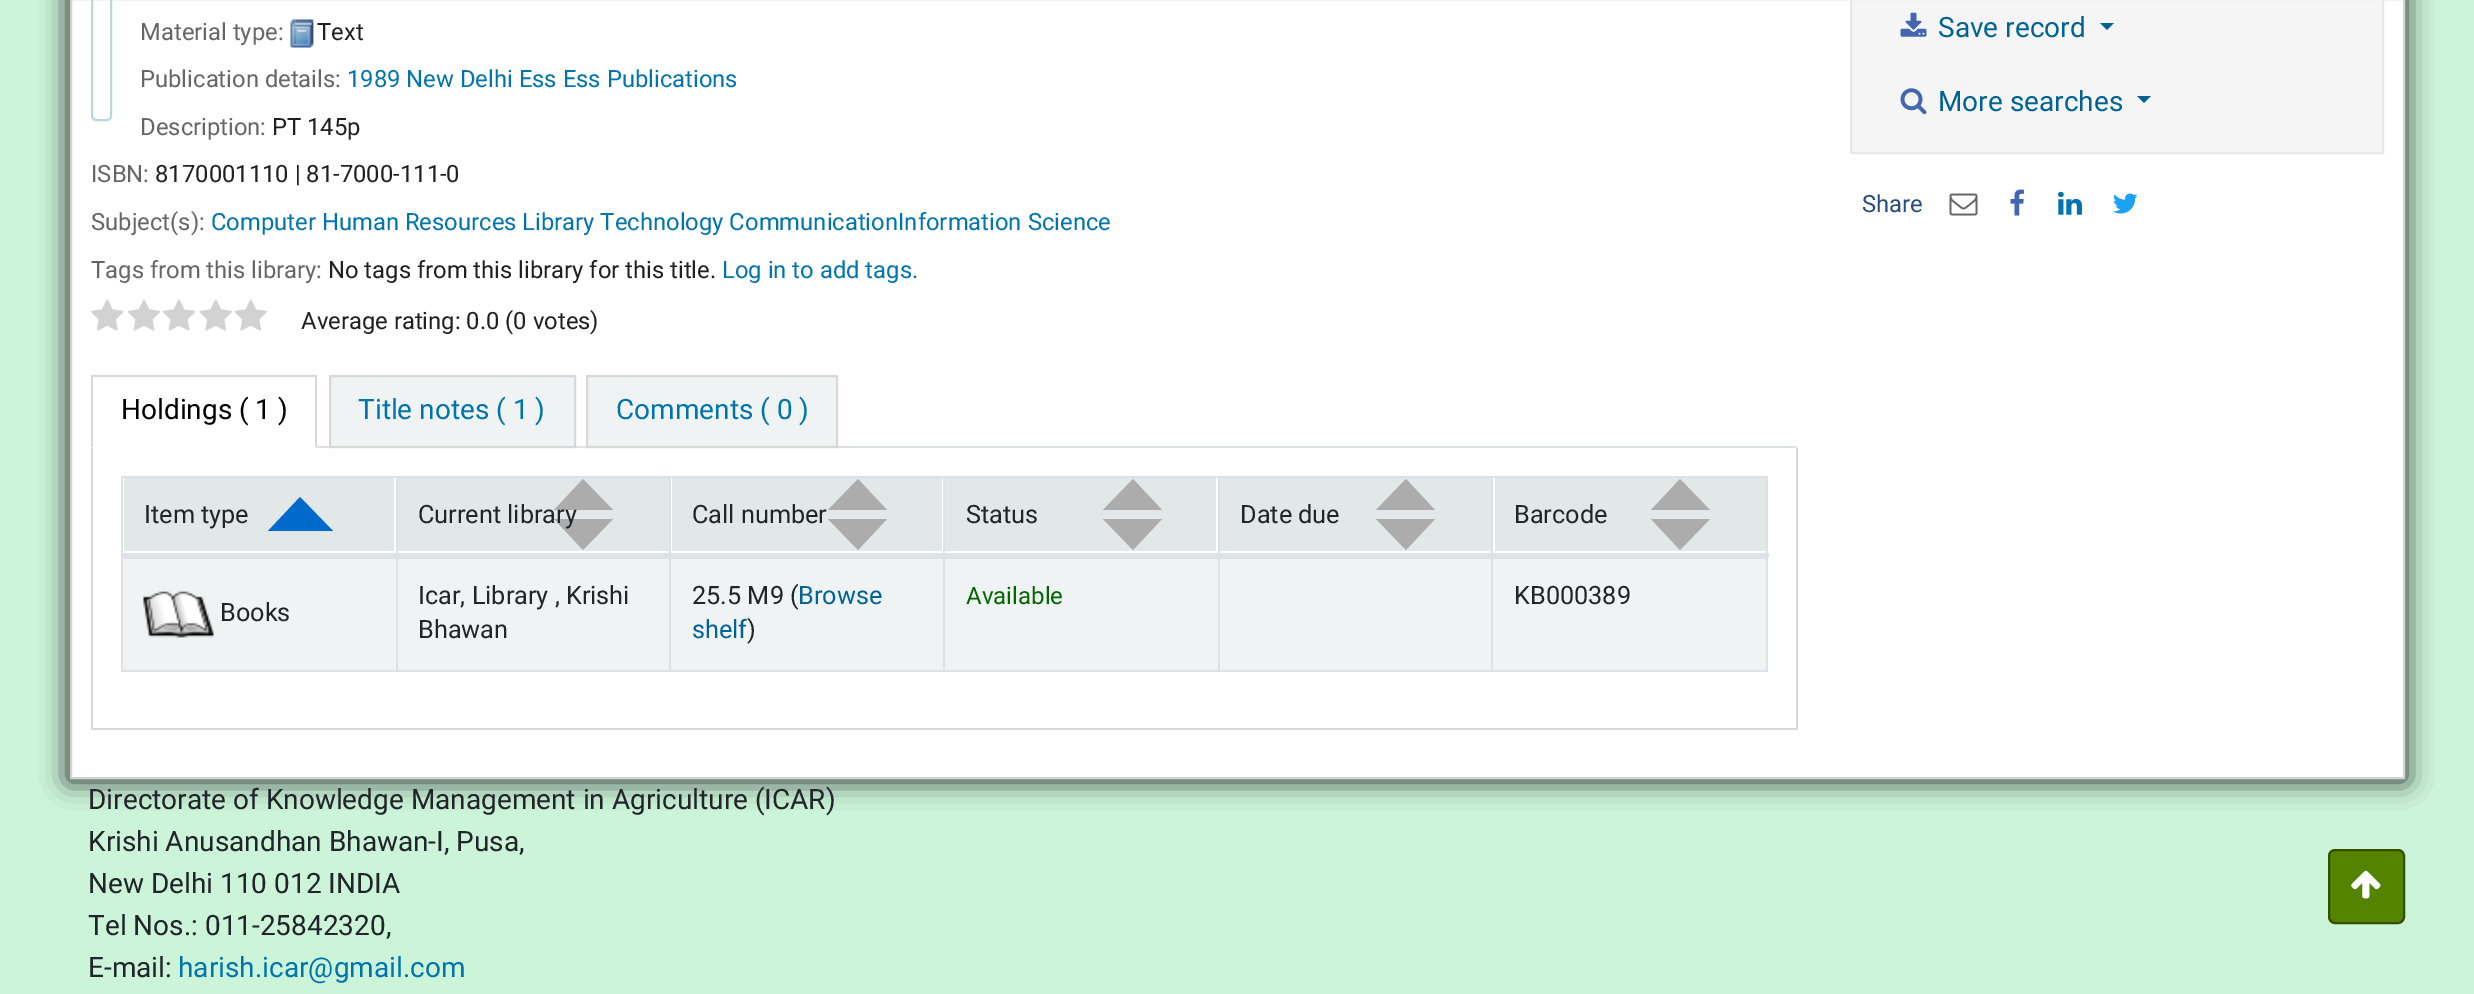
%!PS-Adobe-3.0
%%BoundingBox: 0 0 2474 994
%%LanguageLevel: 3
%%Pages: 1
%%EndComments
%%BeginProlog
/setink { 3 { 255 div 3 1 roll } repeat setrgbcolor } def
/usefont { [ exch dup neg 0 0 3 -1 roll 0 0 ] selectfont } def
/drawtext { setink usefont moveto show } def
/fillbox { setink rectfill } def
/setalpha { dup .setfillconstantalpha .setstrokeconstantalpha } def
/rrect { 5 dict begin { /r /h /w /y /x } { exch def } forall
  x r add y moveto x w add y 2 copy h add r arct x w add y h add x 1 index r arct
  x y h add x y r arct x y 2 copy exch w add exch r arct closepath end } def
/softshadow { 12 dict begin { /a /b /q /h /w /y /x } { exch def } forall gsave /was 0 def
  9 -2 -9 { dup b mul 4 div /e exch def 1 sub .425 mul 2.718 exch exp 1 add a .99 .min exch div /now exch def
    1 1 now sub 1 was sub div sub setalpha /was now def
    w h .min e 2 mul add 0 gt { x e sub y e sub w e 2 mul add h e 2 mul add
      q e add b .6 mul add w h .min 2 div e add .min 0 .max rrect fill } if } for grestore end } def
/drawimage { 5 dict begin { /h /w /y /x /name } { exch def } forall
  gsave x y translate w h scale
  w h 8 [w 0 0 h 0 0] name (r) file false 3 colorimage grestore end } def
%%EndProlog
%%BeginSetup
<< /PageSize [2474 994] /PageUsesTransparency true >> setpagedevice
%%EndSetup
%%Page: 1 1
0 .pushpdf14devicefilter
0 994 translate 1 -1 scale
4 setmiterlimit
0 0 2474 994 203 244 216 fillbox
33 37 41 setink
68 -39 2338 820 0 13 1 softshadow
255 255 255 setink
71 -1 moveto 2404 -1 lineto 2404 778 lineto 71 778 lineto closepath gsave fill grestore
210 210 207 setink
2 setlinewidth
stroke
185 216 217 setink
92 -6 19 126 4 rrect stroke
(Material type:) 140 40 /Roboto-Regular 23.8 102 102 102 drawtext
(assets/img1.rgb) 290 19 24 29 drawimage
(Text) 317 40 /Roboto-Regular 23.8 32 32 32 drawtext
(Publication details:) 140 87 /Roboto-Regular 23.8 102 102 102 drawtext
(1989 New Delhi Ess Ess Publications) 347 87 /Roboto-Regular 23.8 0 116 173 drawtext
(Description:) 140 135 /Roboto-Regular 23.8 102 102 102 drawtext
(PT 145p) 272 135 /Roboto-Regular 23.8 32 32 32 drawtext
(ISBN:) 91 182 /Roboto-Regular 23.8 102 102 102 drawtext
(8170001110 | 81-7000-111-0) 155 182 /Roboto-Regular 23.8 32 32 32 drawtext
(Subject\(s\):) 91 230 /Roboto-Regular 23.8 102 102 102 drawtext
(Computer Human Resources Library Technology CommunicationInformation Science) 211 230 /Roboto-Regular 23.8 0 116 173 drawtext
(Tags from this library:) 91 278 /Roboto-Regular 23.8 102 102 102 drawtext
(No tags from this library for this title.) 328 278 /Roboto-Regular 23.8 32 32 32 drawtext
(Log in to add tags.) 722 278 /Roboto-Regular 23.8 0 116 173 drawtext
(assets/img2.rgb) 91 299 33 32 drawimage
(assets/img3.rgb) 127 299 34 32 drawimage
(assets/img3.rgb) 162 299 34 32 drawimage
(assets/img4.rgb) 199 299 33 32 drawimage
(assets/img4.rgb) 234 299 33 32 drawimage
(Average rating: 0.0 \(0 votes\)) 301 329 /Roboto-Regular 23.8 32 32 32 drawtext
317 446 1480 2 222 226 230 fillbox
91 375 226 2 216 216 216 fillbox
317 374 moveto 317 448 lineto 315 446 lineto 315 376 lineto closepath fill
91 448 moveto 91 374 lineto 93 376 lineto 93 446 lineto closepath fill
(Holdings \( 1 \)) 121 419 /Roboto-Regular 28 0 0 0 drawtext
240 243 243 setink
330 376 moveto 575 376 lineto 575 447 lineto 330 447 lineto closepath gsave fill grestore
216 216 216 setink
stroke
(Title notes \( 1 \)) 358 419 /Roboto-Regular 28 0 116 173 drawtext
240 243 243 setink
587 376 moveto 837 376 lineto 837 447 lineto 587 447 lineto closepath gsave fill grestore
216 216 216 setink
stroke
(Comments \( 0 \)) 616 419 /Roboto-Regular 28 0 116 173 drawtext
1796 448 2 282 216 216 216 fillbox
91 728 1706 2 216 216 216 fillbox
91 448 2 282 216 216 216 fillbox
121 476 1647 2 222 226 230 fillbox
1766 476 2 196 222 226 230 fillbox
121 670 1647 2 222 226 230 fillbox
121 476 2 196 222 226 230 fillbox
124 478 270 73 226 232 232 fillbox
0 106 204 setink
333 531 moveto 268 531 lineto 300 497 lineto closepath fill
(Item type) 144 523 /Roboto-Regular 25.25 33 37 41 drawtext
398 478 271 73 226 232 232 fillbox
172 172 172 setink
613 519 moveto 554 519 lineto 583 550 lineto closepath fill
613 510 moveto 554 510 lineto 583 479 lineto closepath fill
(Current library) 418 523 /Roboto-Regular 25.25 33 37 41 drawtext
672 478 270 73 226 232 232 fillbox
172 172 172 setink
887 519 moveto 828 519 lineto 858 550 lineto closepath fill
887 510 moveto 828 510 lineto 858 479 lineto closepath fill
(Call number) 692 523 /Roboto-Regular 25.25 33 37 41 drawtext
945 478 271 73 226 232 232 fillbox
172 172 172 setink
1162 519 moveto 1103 519 lineto 1133 550 lineto closepath fill
1162 510 moveto 1103 510 lineto 1133 479 lineto closepath fill
(Status) 966 523 /Roboto-Regular 25.25 33 37 41 drawtext
1220 478 271 73 226 232 232 fillbox
172 172 172 setink
1435 519 moveto 1376 519 lineto 1406 550 lineto closepath fill
1435 510 moveto 1376 510 lineto 1406 479 lineto closepath fill
(Date due) 1240 523 /Roboto-Regular 25.25 33 37 41 drawtext
1495 478 271 73 226 232 232 fillbox
172 172 172 setink
1710 519 moveto 1651 519 lineto 1680 550 lineto closepath fill
1710 510 moveto 1651 510 lineto 1680 479 lineto closepath fill
1491 557 277 2 222 226 230 fillbox
1491 476 2 196 222 226 230 fillbox
1218 557 275 2 222 226 230 fillbox
1218 476 2 196 222 226 230 fillbox
943 557 277 2 222 226 230 fillbox
943 476 2 196 222 226 230 fillbox
669 557 276 2 222 226 230 fillbox
669 476 2 196 222 226 230 fillbox
396 557 274 2 222 226 230 fillbox
396 476 2 196 222 226 230 fillbox
121 553 1648 4 222 226 230 fillbox
(Barcode) 1514 523 /Roboto-Regular 25.25 33 37 41 drawtext
398 559 271 111 240 243 243 fillbox
(Icar, Library , Krishi) 418 604 /Roboto-Regular 25.25 33 37 41 drawtext
(Bhawan) 418 638 /Roboto-Regular 25.25 33 37 41 drawtext
671 559 272 111 240 243 243 fillbox
(25.5 M9 \() 692 604 /Roboto-Regular 25.25 33 37 41 drawtext
(Browse) 798 604 /Roboto-Regular 25.25 0 99 148 drawtext
(shelf) 692 638 /Roboto-Regular 25.25 0 99 148 drawtext
(\)) 747 638 /Roboto-Regular 25.25 33 37 41 drawtext
945 559 273 111 240 243 243 fillbox
(Available) 966 604 /Roboto-Regular 24 0 102 0 drawtext
1220 559 271 111 240 243 243 fillbox
1493 559 273 111 240 243 243 fillbox
(KB000389) 1514 604 /Roboto-Regular 25.25 33 37 41 drawtext
123 559 273 111 240 243 243 fillbox
121 557 276 2 222 226 230 fillbox
(assets/img5.rgb) 143 591 71 47 drawimage
(Books) 220 621 /Roboto-Regular 25.25 33 37 41 drawtext
245 245 245 setink
1851 -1 moveto 2383 -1 lineto 2383 153 lineto 1851 153 lineto closepath gsave fill grestore
232 232 232 setink
stroke
(assets/img6.rgb) 1900 12 27 25 drawimage
(Save record) 1938 37 /Roboto-Regular 28 0 99 148 drawtext
2100 23 moveto 2114 23 lineto 2107 30 lineto closepath fill
(assets/img7.rgb) 1900 88 27 27 drawimage
(More searches) 1938 111 /Roboto-Regular 28 0 99 148 drawtext
2137 96 moveto 2151 96 lineto 2144 103 lineto closepath fill
(Share) 1862 212 /Roboto-Regular 23.8 39 77 127 drawtext
(assets/img8.rgb) 1949 193 29 23 drawimage
(assets/img9.rgb) 2010 189 14 27 drawimage
(assets/img10.rgb) 2058 191 24 24 drawimage
(assets/img11.rgb) 2113 193 25 21 drawimage
(Directorate of Knowledge Management in Agriculture \(ICAR\)) 88 809 /Roboto-Regular 28 33 37 41 drawtext
(Krishi Anusandhan Bhawan-I, Pusa,) 88 851 /Roboto-Regular 28 33 37 41 drawtext
(New Delhi 110 012 INDIA) 88 893 /Roboto-Regular 28 33 37 41 drawtext
(Tel Nos.: 011-25842320,) 88 935 /Roboto-Regular 28 33 37 41 drawtext
(E-mail:) 88 977 /Roboto-Regular 28 33 37 41 drawtext
(harish.icar@gmail.com) 178 977 /Roboto-Regular 28 0 116 173 drawtext
84 131 0 setink
2329 850 75 73 6 rrect gsave fill grestore
51 80 0 setink
stroke
(assets/img12.rgb) 2351 870 30 29 drawimage
.poppdf14devicefilter showpage
%%EOF
